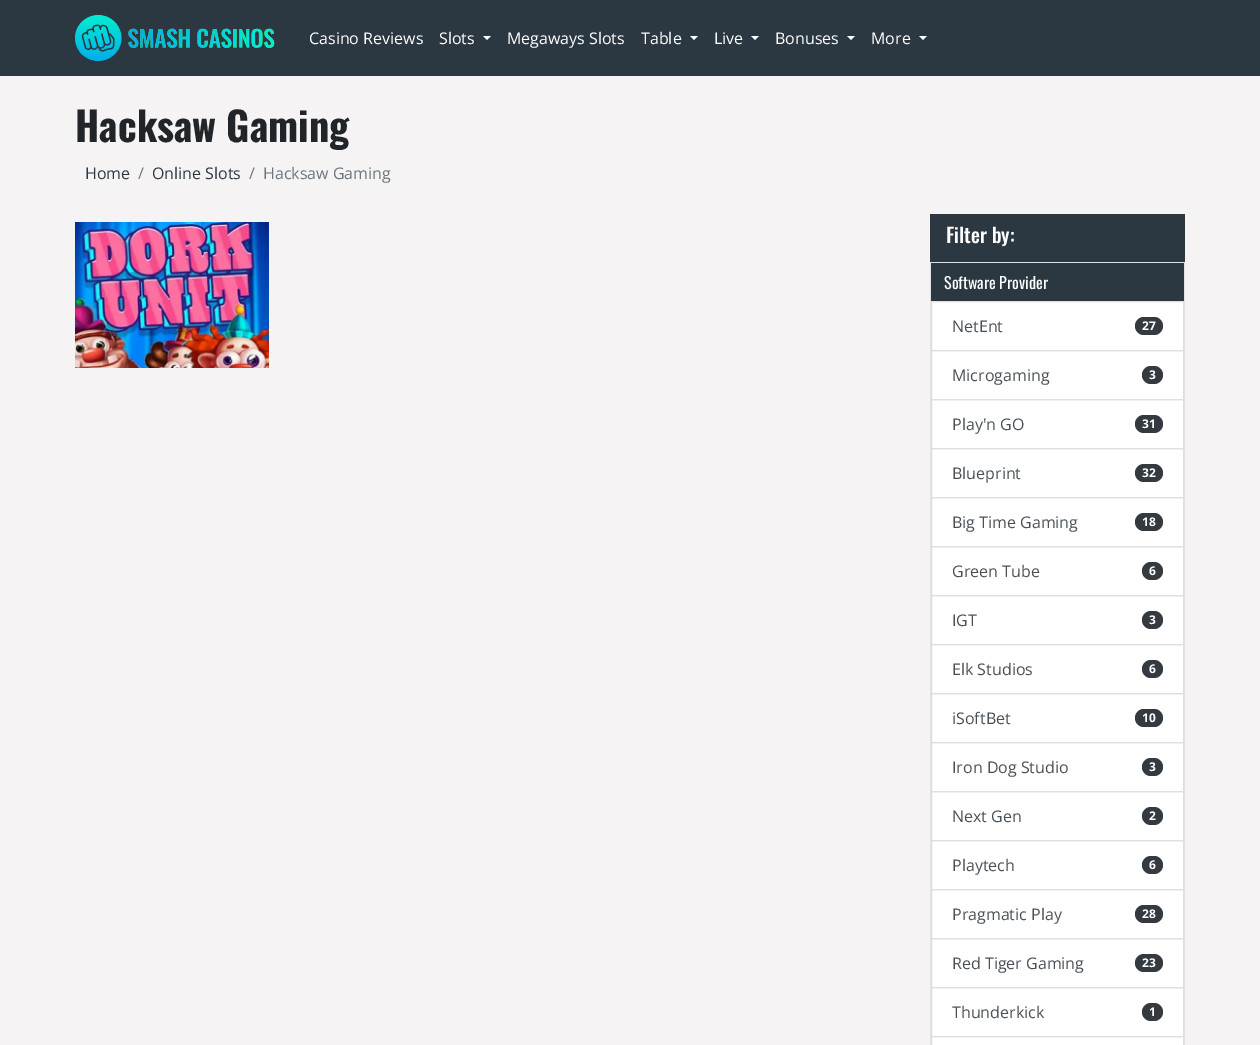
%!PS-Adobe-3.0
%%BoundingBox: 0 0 1260 1045
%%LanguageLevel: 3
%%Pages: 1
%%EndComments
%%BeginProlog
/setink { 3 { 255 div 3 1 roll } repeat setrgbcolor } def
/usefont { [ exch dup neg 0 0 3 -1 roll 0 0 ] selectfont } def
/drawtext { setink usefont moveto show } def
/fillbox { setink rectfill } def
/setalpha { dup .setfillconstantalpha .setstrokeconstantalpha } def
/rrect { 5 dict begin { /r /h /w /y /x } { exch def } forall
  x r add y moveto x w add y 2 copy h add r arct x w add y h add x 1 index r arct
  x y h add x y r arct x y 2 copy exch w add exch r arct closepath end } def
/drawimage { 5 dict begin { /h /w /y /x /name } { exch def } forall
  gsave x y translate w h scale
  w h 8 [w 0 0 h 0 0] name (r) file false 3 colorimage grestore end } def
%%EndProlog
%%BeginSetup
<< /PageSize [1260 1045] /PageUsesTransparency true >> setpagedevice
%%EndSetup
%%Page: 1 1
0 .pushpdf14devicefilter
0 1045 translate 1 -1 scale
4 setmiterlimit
0 0 1260 1045 245 243 244 fillbox
0 0 1260 76 43 56 65 fillbox
(assets/img1.rgb) 75 15 200 46 drawimage
(Casino Reviews) 309 44 /OpenSans-Regular 16 255 255 255 drawtext
(Slots) 439 44 /OpenSans-Regular 16 255 255 255 drawtext
483 36 moveto 491 36 lineto 487 40 lineto closepath fill
(Megaways Slots) 507 44 /OpenSans-Regular 16 255 255 255 drawtext
(Table) 641 44 /OpenSans-Regular 16 255 255 255 drawtext
690 36 moveto 698 36 lineto 694 40 lineto closepath fill
(Live) 714 44 /OpenSans-Regular 16 255 255 255 drawtext
751 36 moveto 759 36 lineto 755 40 lineto closepath fill
(Bonuses) 775 44 /OpenSans-Regular 16 255 255 255 drawtext
847 36 moveto 855 36 lineto 851 40 lineto closepath fill
(More) 871 44 /OpenSans-Regular 16 255 255 255 drawtext
919 36 moveto 927 36 lineto 923 40 lineto closepath fill
(Hacksaw Gaming) 75 142 /Oswald-Bold 40 33 37 41 drawtext
(Home) 85 179 /OpenSans-Regular 16 43 56 65 drawtext
(/) 138 179 /OpenSans-Regular 16 108 117 125 drawtext
(Online Slots) 152 179 /OpenSans-Regular 16 43 56 65 drawtext
(/) 249 179 /OpenSans-Regular 16 108 117 125 drawtext
(Hacksaw Gaming) 263 179 /OpenSans-Regular 16 108 117 125 drawtext
(assets/img2.rgb) 75 222 194 146 drawimage
930 214 255 48 43 56 65 fillbox
(Filter by:) 946 243 /Oswald-Medium 20 255 255 255 drawtext
930 262 255 783 255 255 255 fillbox
223 223 223 setink
930 262 moveto 1185 262 lineto 1184 263 lineto 931 263 lineto closepath fill
0.12 setalpha
0 0 0 setink
1185 262 moveto 1185 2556 lineto 1184 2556 lineto 1184 263 lineto closepath fill
930 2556 moveto 930 262 lineto 931 263 lineto 931 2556 lineto closepath fill
1 setalpha
931 263 253 38 43 56 65 fillbox
(Software Provider) 944 289 /Oswald-Regular 16 255 255 255 drawtext
223 223 223 setink
931.5 301.5 252 49 rectstroke
(NetEnt) 952 332 /OpenSans-Regular 16 73 80 87 drawtext
52 58 64 setink
1135 317 28 18 9 rrect fill
(27) 1142 330 /OpenSans-Bold 12 255 255 255 drawtext
223 223 223 setink
931.5 350.5 252 49 rectstroke
(Microgaming) 952 381 /OpenSans-Regular 16 73 80 87 drawtext
52 58 64 setink
1142 366 21 18 9 rrect fill
(3) 1149 379 /OpenSans-Bold 12 255 255 255 drawtext
223 223 223 setink
931.5 399.5 252 49 rectstroke
(Play'n GO) 952 430 /OpenSans-Regular 16 73 80 87 drawtext
52 58 64 setink
1135 415 28 18 9 rrect fill
(31) 1142 428 /OpenSans-Bold 12 255 255 255 drawtext
223 223 223 setink
931.5 448.5 252 49 rectstroke
(Blueprint) 952 479 /OpenSans-Regular 16 73 80 87 drawtext
52 58 64 setink
1135 464 28 18 9 rrect fill
(32) 1142 477 /OpenSans-Bold 12 255 255 255 drawtext
223 223 223 setink
931.5 497.5 252 49 rectstroke
(Big Time Gaming) 952 528 /OpenSans-Regular 16 73 80 87 drawtext
52 58 64 setink
1135 513 28 18 9 rrect fill
(18) 1142 526 /OpenSans-Bold 12 255 255 255 drawtext
223 223 223 setink
931.5 546.5 252 49 rectstroke
(Green Tube) 952 577 /OpenSans-Regular 16 73 80 87 drawtext
52 58 64 setink
1142 562 21 18 9 rrect fill
(6) 1149 575 /OpenSans-Bold 12 255 255 255 drawtext
223 223 223 setink
931.5 595.5 252 49 rectstroke
(IGT) 952 626 /OpenSans-Regular 16 73 80 87 drawtext
52 58 64 setink
1142 611 21 18 9 rrect fill
(3) 1149 624 /OpenSans-Bold 12 255 255 255 drawtext
223 223 223 setink
931.5 644.5 252 49 rectstroke
(Elk Studios) 952 675 /OpenSans-Regular 16 73 80 87 drawtext
52 58 64 setink
1142 660 21 18 9 rrect fill
(6) 1149 673 /OpenSans-Bold 12 255 255 255 drawtext
223 223 223 setink
931.5 693.5 252 49 rectstroke
(iSoftBet) 952 724 /OpenSans-Regular 16 73 80 87 drawtext
52 58 64 setink
1135 709 28 18 9 rrect fill
(10) 1142 722 /OpenSans-Bold 12 255 255 255 drawtext
223 223 223 setink
931.5 742.5 252 49 rectstroke
(Iron Dog Studio) 952 773 /OpenSans-Regular 16 73 80 87 drawtext
52 58 64 setink
1142 758 21 18 9 rrect fill
(3) 1149 771 /OpenSans-Bold 12 255 255 255 drawtext
223 223 223 setink
931.5 791.5 252 49 rectstroke
(Next Gen) 952 822 /OpenSans-Regular 16 73 80 87 drawtext
52 58 64 setink
1142 807 21 18 9 rrect fill
(2) 1149 820 /OpenSans-Bold 12 255 255 255 drawtext
223 223 223 setink
931.5 840.5 252 49 rectstroke
(Playtech) 952 871 /OpenSans-Regular 16 73 80 87 drawtext
52 58 64 setink
1142 856 21 18 9 rrect fill
(6) 1149 869 /OpenSans-Bold 12 255 255 255 drawtext
223 223 223 setink
931.5 889.5 252 49 rectstroke
(Pragmatic Play) 952 920 /OpenSans-Regular 16 73 80 87 drawtext
52 58 64 setink
1135 905 28 18 9 rrect fill
(28) 1142 918 /OpenSans-Bold 12 255 255 255 drawtext
223 223 223 setink
931.5 938.5 252 49 rectstroke
(Red Tiger Gaming) 952 969 /OpenSans-Regular 16 73 80 87 drawtext
52 58 64 setink
1135 954 28 18 9 rrect fill
(23) 1142 967 /OpenSans-Bold 12 255 255 255 drawtext
223 223 223 setink
931.5 987.5 252 49 rectstroke
(Thunderkick) 952 1018 /OpenSans-Regular 16 73 80 87 drawtext
52 58 64 setink
1142 1003 21 18 9 rrect fill
(1) 1149 1016 /OpenSans-Bold 12 255 255 255 drawtext
223 223 223 setink
931.5 1036.5 252 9 rectstroke
.poppdf14devicefilter showpage
%%EOF
